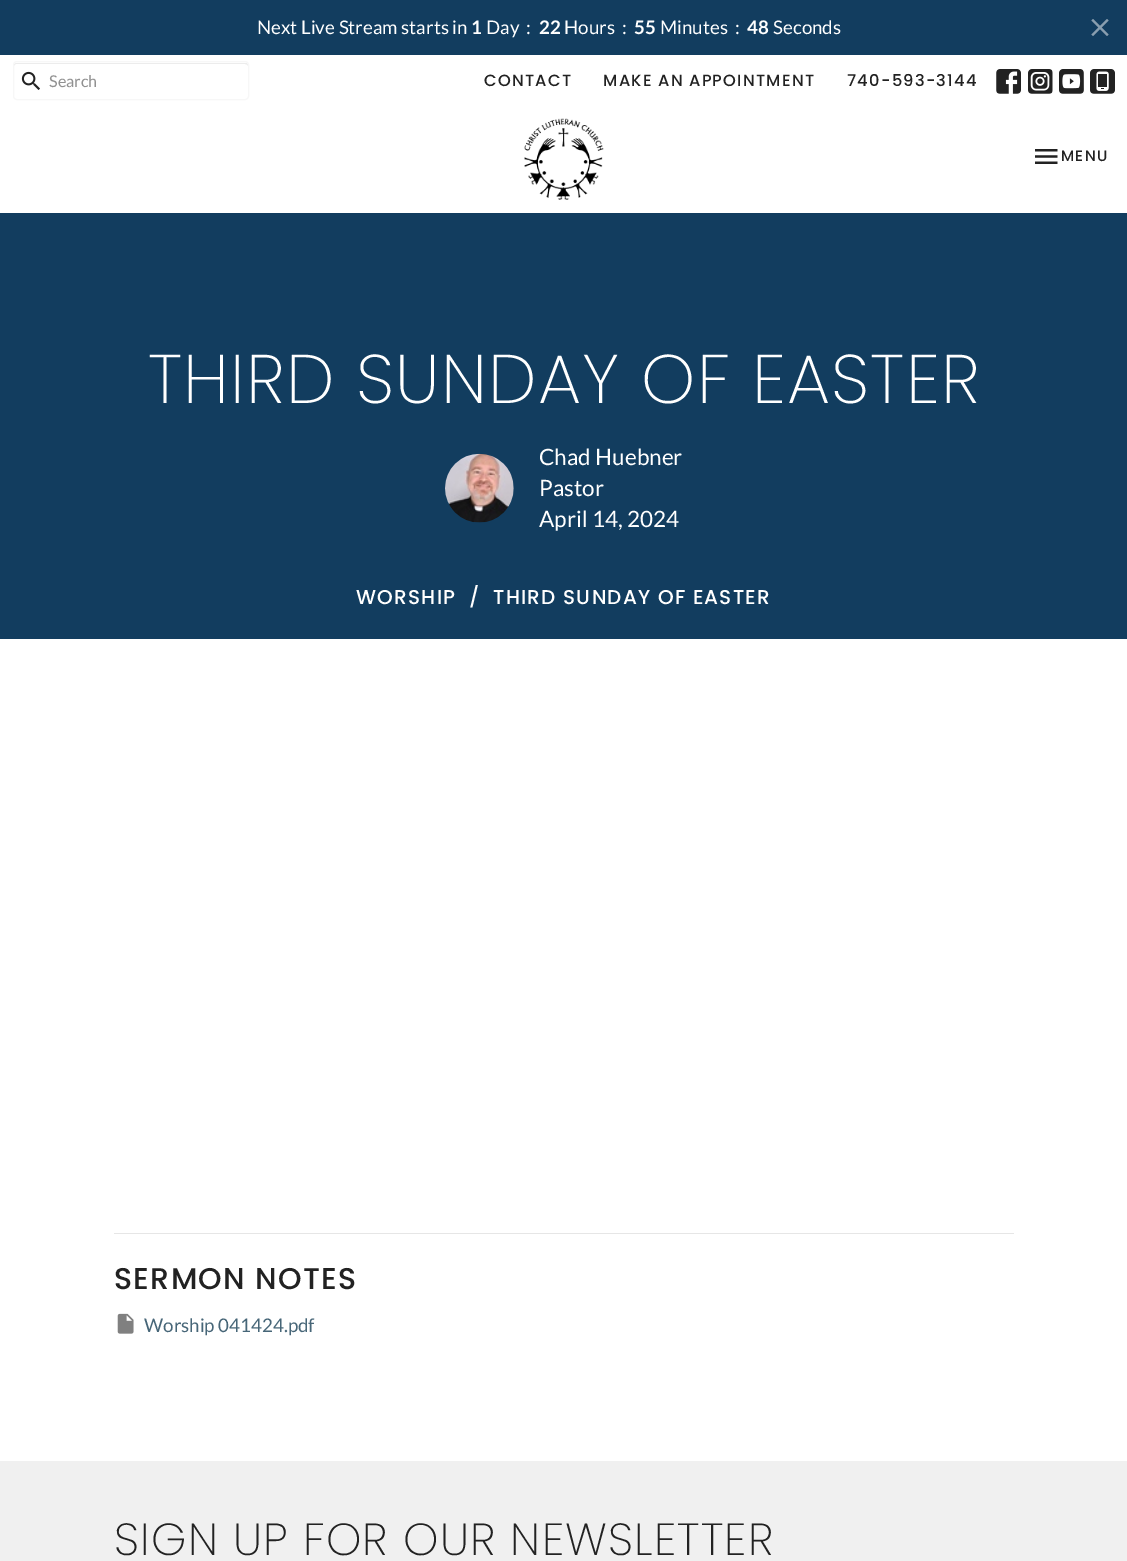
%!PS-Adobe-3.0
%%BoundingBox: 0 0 1127 1561
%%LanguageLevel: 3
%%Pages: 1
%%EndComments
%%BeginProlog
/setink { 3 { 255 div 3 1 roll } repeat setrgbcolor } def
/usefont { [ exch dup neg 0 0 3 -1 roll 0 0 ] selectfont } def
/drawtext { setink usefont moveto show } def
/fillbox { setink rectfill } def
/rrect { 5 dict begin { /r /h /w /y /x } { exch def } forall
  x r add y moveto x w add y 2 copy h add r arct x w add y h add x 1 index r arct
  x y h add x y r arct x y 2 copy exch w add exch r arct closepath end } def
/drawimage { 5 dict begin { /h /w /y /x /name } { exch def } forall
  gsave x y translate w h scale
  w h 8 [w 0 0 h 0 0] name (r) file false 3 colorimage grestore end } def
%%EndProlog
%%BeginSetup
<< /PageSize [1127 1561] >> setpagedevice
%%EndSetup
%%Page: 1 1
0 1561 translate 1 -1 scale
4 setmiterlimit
0 0 1127 1561 255 255 255 fillbox
0 0 1127 55 18 61 95 fillbox
(Next Live Stream starts in) 257 34 /Lato-Regular 18.75 255 255 255 drawtext
(1) 471 34 /Lato-Bold 18.75 255 255 255 drawtext
(Day) 486 34 /Lato-Regular 18.75 255 255 255 drawtext
(:) 526 34 /Lato-Regular 18.75 255 255 255 drawtext
(22) 539 34 /Lato-Bold 18.75 255 255 255 drawtext
(Hours) 564 34 /Lato-Regular 18.75 255 255 255 drawtext
(:) 622 34 /Lato-Regular 18.75 255 255 255 drawtext
(55) 634 34 /Lato-Bold 18.75 255 255 255 drawtext
(Minutes) 660 34 /Lato-Regular 18.75 255 255 255 drawtext
(:) 735 34 /Lato-Regular 18.75 255 255 255 drawtext
(48) 747 34 /Lato-Bold 18.75 255 255 255 drawtext
(Seconds) 773 34 /Lato-Regular 18.75 255 255 255 drawtext
(assets/img1.rgb) 1091 19 18 17 drawimage
236 236 236 setink
16 64 moveto 245 64 lineto 246 64 248 65 248 66 curveto 248 64 247 63 246 63 curveto 16 63 lineto 14 64 lineto 14 66 lineto 14 65 15 64 16 64 curveto closepath fill
247 247 247 setink
13.5 61.5 235 38 3.5 rrect stroke
(assets/img2.rgb) 21 71 19 19 drawimage
(Search) 49 87 /Lato-Regular 16.25 145 145 145 drawtext
/Poppins-Medium 16.25 usefont
34 34 34 setink
484 86 moveto 1.25 0 (CONTACT) ashow
603 86 moveto 1.25 0 (MAKE AN APPOINTMENT) ashow
847 86 moveto 1.25 0 (740-593-3144) ashow
(assets/img3.rgb) 996 69 25 25 drawimage
(assets/img4.rgb) 1028 69 25 25 drawimage
(assets/img5.rgb) 1059 69 25 25 drawimage
(assets/img6.rgb) 1090 69 25 25 drawimage
(assets/img7.rgb) 524 118 80 82 drawimage
(assets/img8.rgb) 1035 149 23 15 drawimage
/Poppins-Medium 15 usefont
1061 161 moveto 1.25 0 (MENU) ashow
0 213 1127 426 18 61 95 fillbox
/Poppins-ExtraLight 68.75 usefont
255 255 255 setink
148 403 moveto 1.25 0 (THIRD SUNDAY OF EASTER) ashow
(assets/img9.rgb) 445 453 69 70 drawimage
(Chad Huebner) 539 465 /Lato-Regular 22.5 255 255 255 drawtext
(Pastor) 539 496 /Lato-Regular 22.5 255 255 255 drawtext
(April 14, 2024) 539 527 /Lato-Regular 22.5 255 255 255 drawtext
/Poppins-Medium 20 usefont
356 604 moveto 1.25 0 (WORSHIP) ashow
469 604 moveto 1.25 0 (/) ashow
493 604 moveto 1.25 0 (THIRD SUNDAY OF EASTER) ashow
114 1233 900 1 230 230 230 fillbox
/Poppins-Medium 30 usefont
34 34 34 setink
114 1289 moveto 1.25 0 (SERMON NOTES) ashow
(assets/img10.rgb) 117 1313 17 21 drawimage
(Worship 041424.pdf) 144 1332 /Lato-Regular 18.75 71 102 120 drawtext
0 1461 1127 100 240 240 240 fillbox
/Poppins-ExtraLight 45 usefont
34 34 34 setink
114 1555 moveto 1.25 0 (SIGN UP FOR OUR NEWSLETTER) ashow
showpage
%%EOF
